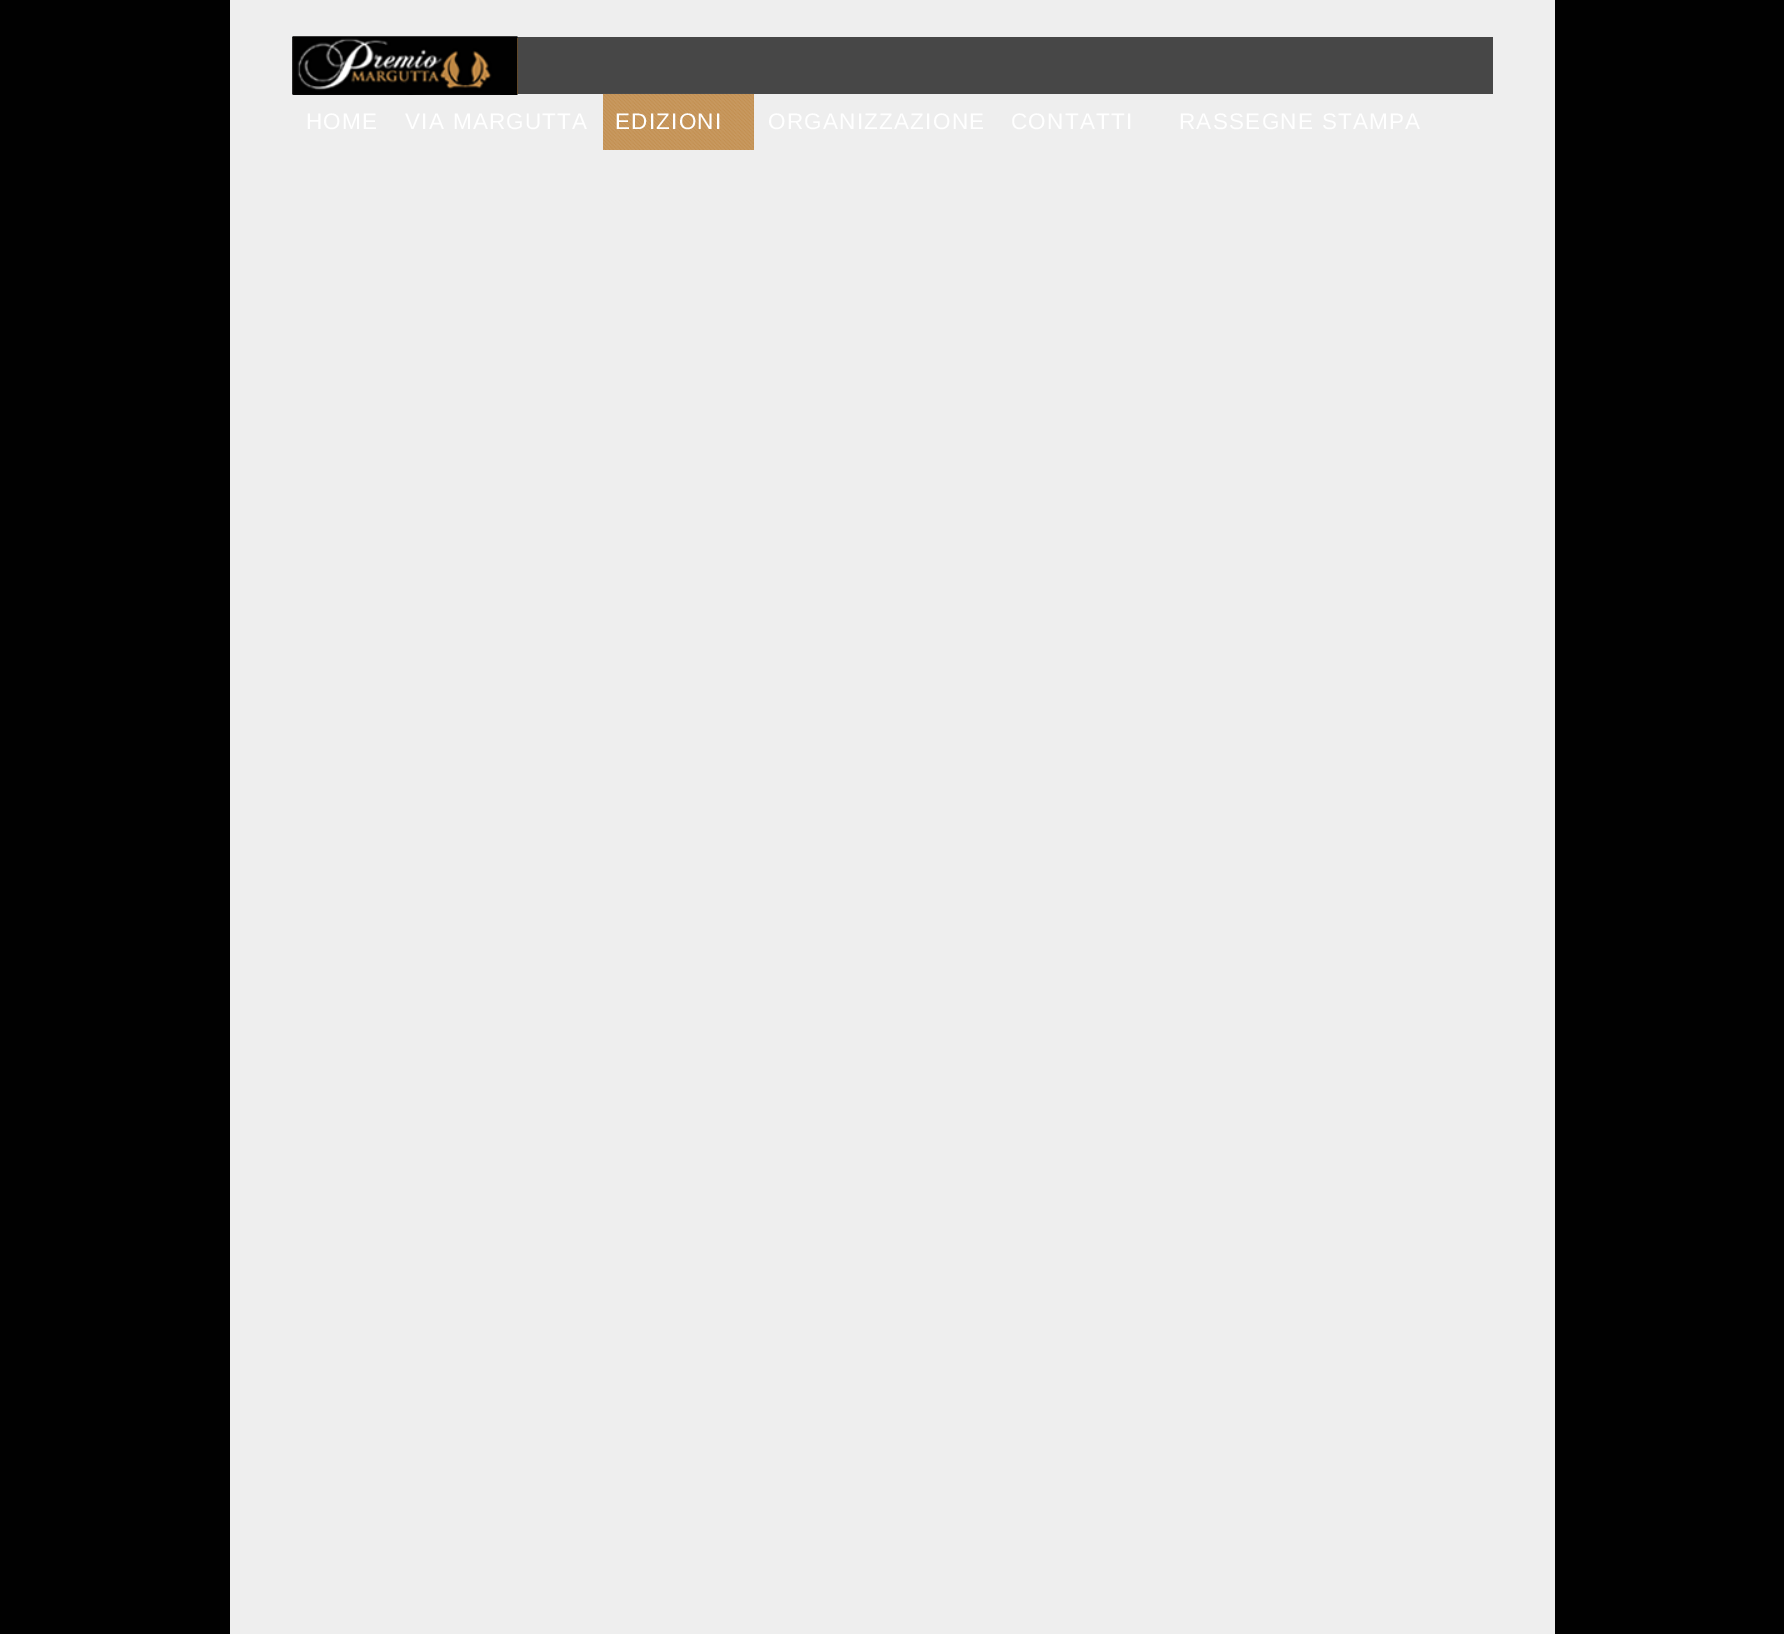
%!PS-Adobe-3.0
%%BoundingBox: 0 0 1784 1634
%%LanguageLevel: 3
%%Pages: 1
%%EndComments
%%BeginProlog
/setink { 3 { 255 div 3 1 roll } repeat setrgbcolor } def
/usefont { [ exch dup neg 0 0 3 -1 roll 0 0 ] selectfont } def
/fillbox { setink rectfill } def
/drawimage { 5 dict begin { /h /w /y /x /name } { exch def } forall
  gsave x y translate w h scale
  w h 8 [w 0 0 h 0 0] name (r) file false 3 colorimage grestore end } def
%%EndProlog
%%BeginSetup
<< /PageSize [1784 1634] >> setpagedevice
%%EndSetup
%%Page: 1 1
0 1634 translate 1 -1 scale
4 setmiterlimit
0 0 1784 1634 1 1 1 fillbox
230 0 1325 1634 238 238 238 fillbox
292 37 1201 57 71 71 71 fillbox
293 38 225 56 190 135 68 fillbox
(assets/img1.rgb) 292 37 226 57 drawimage
(assets/img2.rgb) 292 36 226 59 drawimage
/LiberationSans-Regular 22.5 usefont
255 255 255 setink
306 129 moveto 1.25 0 (HOME) ashow
405 129 moveto 1.25 0 (VIA MARGUTTA) ashow
603 94 151 56 190 135 68 fillbox
(assets/img3.rgb) 603 93 151 57 drawimage
255 255 255 setink
615 129 moveto 1.25 0 (EDIZIONI) ashow
768 129 moveto 1.25 0 (ORGANIZZAZIONE) ashow
1011 129 moveto 1.25 0 (CONTATTI) ashow
1179 129 moveto 1.25 0 (RASSEGNE STAMPA) ashow
showpage
%%EOF
